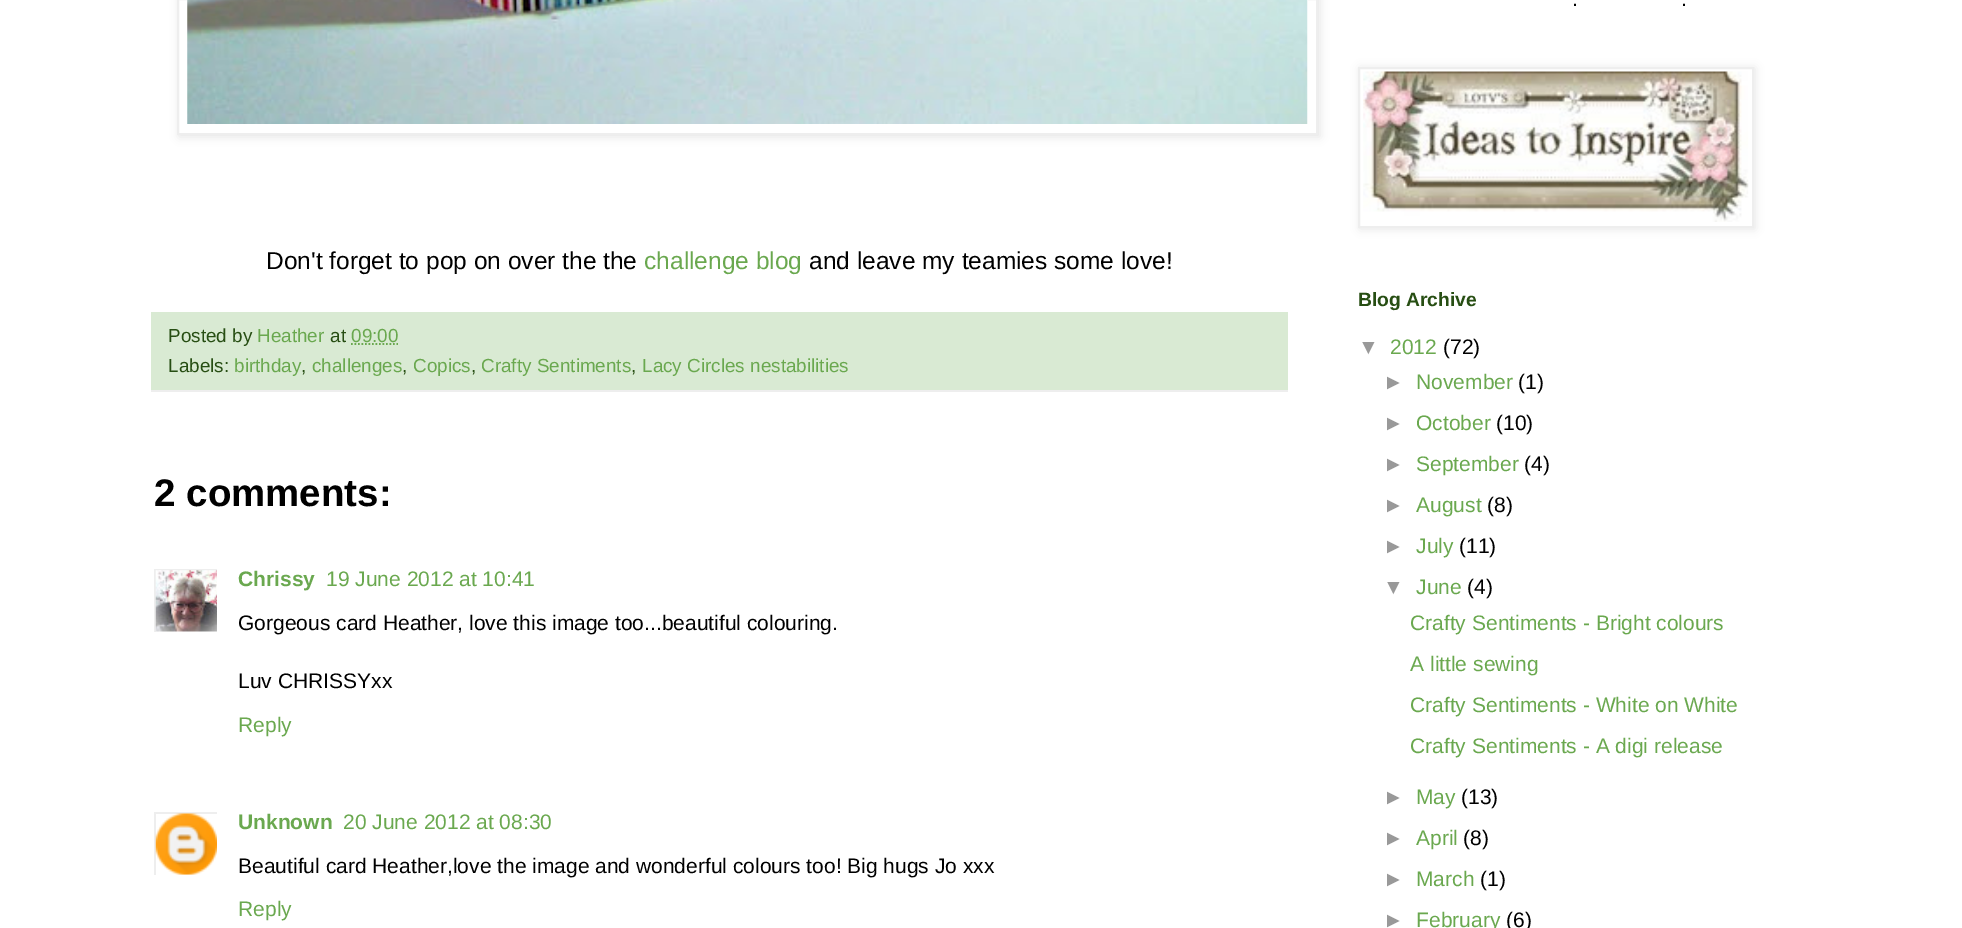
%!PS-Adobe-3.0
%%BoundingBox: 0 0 1962 928
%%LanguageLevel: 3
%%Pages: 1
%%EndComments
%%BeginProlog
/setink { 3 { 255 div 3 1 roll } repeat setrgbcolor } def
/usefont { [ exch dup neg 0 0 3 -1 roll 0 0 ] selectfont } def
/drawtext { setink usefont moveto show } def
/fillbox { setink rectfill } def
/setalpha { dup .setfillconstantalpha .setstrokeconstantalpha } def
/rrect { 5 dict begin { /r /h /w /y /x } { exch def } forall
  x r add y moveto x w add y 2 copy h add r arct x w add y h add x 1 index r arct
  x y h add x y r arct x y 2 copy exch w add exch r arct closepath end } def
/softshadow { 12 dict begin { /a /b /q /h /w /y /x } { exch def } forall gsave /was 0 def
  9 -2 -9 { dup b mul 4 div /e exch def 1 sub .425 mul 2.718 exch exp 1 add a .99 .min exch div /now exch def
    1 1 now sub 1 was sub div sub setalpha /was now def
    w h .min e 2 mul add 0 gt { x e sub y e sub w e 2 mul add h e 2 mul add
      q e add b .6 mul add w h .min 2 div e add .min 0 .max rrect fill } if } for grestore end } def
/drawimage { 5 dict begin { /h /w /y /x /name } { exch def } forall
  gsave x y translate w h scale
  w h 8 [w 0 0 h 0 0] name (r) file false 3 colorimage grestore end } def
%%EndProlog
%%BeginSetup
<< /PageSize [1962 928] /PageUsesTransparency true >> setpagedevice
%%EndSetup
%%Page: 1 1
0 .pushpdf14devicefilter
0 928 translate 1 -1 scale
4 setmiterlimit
0 0 1962 928 255 255 255 fillbox
0 0 0 setink
179 -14 1141 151 0 4.5 0.1 softshadow
255 255 255 setink
178 -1 moveto 1317 -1 lineto 1317 134 lineto 178 134 lineto closepath gsave fill grestore
238 238 238 setink
2 setlinewidth
stroke
(assets/img1.rgb) 187 0 1121 124 drawimage
(Don't forget to pop on over the the) 266 269 /LiberationSans-Regular 24.5 0 0 0 drawtext
(challenge blog) 644 269 /LiberationSans-Regular 24.5 106 168 79 drawtext
(and leave my teamies some love!) 809 269 /LiberationSans-Regular 24.5 0 0 0 drawtext
151 312 1137 78 217 234 211 fillbox
151 390 1137 2 238 238 238 fillbox
(Posted by) 168 342 /LiberationSans-Regular 18.9 39 78 19 drawtext
(Heather) 257 342 /LiberationSans-Regular 18.9 106 168 79 drawtext
(at) 330 342 /LiberationSans-Regular 18.9 39 78 19 drawtext
(09:00) 351 342 /LiberationSans-Regular 18.9 106 168 79 drawtext
1.8 setlinewidth
[1.75 1.75] 0 setdash
351 344 moveto 398 344 lineto stroke
(Labels:) 168 372 /LiberationSans-Regular 18.9 39 78 19 drawtext
(birthday) 234 372 /LiberationSans-Regular 18.9 106 168 79 drawtext
(,) 301 372 /LiberationSans-Regular 18.9 39 78 19 drawtext
(challenges) 312 372 /LiberationSans-Regular 18.9 106 168 79 drawtext
(,) 402 372 /LiberationSans-Regular 18.9 39 78 19 drawtext
(Copics) 413 372 /LiberationSans-Regular 18.9 106 168 79 drawtext
(,) 471 372 /LiberationSans-Regular 18.9 39 78 19 drawtext
(Crafty Sentiments) 481 372 /LiberationSans-Regular 18.9 106 168 79 drawtext
(,) 631 372 /LiberationSans-Regular 18.9 39 78 19 drawtext
(Lacy Circles nestabilities) 642 372 /LiberationSans-Regular 18.9 106 168 79 drawtext
(2 comments:) 154 506 /LiberationSans-Bold 38.5 0 0 0 drawtext
gsave
154 569 63 63 rectclip
238 238 238 setink
2 setlinewidth
[] 0 setdash
155 570 65 64 rectstroke
grestore
(assets/img2.rgb) 155 570 62 62 drawimage
(Chrissy) 238 586 /LiberationSans-Bold 21 106 168 79 drawtext
(19 June 2012 at 10:41) 326 586 /LiberationSans-Regular 21 106 168 79 drawtext
(Gorgeous card Heather, love this image too...beautiful colouring.) 238 630 /LiberationSans-Regular 21 0 0 0 drawtext
(Luv CHRISSYxx) 238 688 /LiberationSans-Regular 21 0 0 0 drawtext
(Reply) 238 732 /LiberationSans-Regular 21 106 168 79 drawtext
gsave
154 812 63 63 rectclip
238 238 238 setink
2 setlinewidth
[] 0 setdash
155 813 63 63 rectstroke
grestore
(assets/img3.rgb) 155 813 62 62 drawimage
(Unknown) 238 829 /LiberationSans-Bold 21 106 168 79 drawtext
(20 June 2012 at 08:30) 343 829 /LiberationSans-Regular 21 106 168 79 drawtext
(Beautiful card Heather,love the image and wonderful colours too! Big hugs Jo xxx) 238 873 /LiberationSans-Regular 21 0 0 0 drawtext
(Reply) 238 916 /LiberationSans-Regular 21 106 168 79 drawtext
(.) 1572 6 /LiberationSans-Regular 21 0 0 0 drawtext
(.) 1681 6 /LiberationSans-Regular 21 0 0 0 drawtext
1360 68 395 161 0 4.5 0.1 softshadow
255 255 255 setink
1359 68 moveto 1753 68 lineto 1753 227 lineto 1359 227 lineto closepath gsave fill grestore
238 238 238 setink
2 setlinewidth
[] 0 setdash
stroke
(assets/img4.rgb) 1363 71 386 151 drawimage
(Blog Archive) 1358 306 /LiberationSans-Bold 19.25 39 78 19 drawtext
(▼) 1358 354 /LiberationSans-Regular 21 153 153 153 drawtext
(2012) 1390 354 /LiberationSans-Regular 21 106 168 79 drawtext
(\(72\)) 1443 354 /LiberationSans-Regular 21 0 0 0 drawtext
(►) 1383 389 /LiberationSans-Regular 21 153 153 153 drawtext
(November) 1416 389 /LiberationSans-Regular 21 106 168 79 drawtext
(\(1\)) 1518 389 /LiberationSans-Regular 21 0 0 0 drawtext
(►) 1383 430 /LiberationSans-Regular 21 153 153 153 drawtext
(October) 1416 430 /LiberationSans-Regular 21 106 168 79 drawtext
(\(10\)) 1496 430 /LiberationSans-Regular 21 0 0 0 drawtext
(►) 1383 471 /LiberationSans-Regular 21 153 153 153 drawtext
(September) 1416 471 /LiberationSans-Regular 21 106 168 79 drawtext
(\(4\)) 1524 471 /LiberationSans-Regular 21 0 0 0 drawtext
(►) 1383 512 /LiberationSans-Regular 21 153 153 153 drawtext
(August) 1416 512 /LiberationSans-Regular 21 106 168 79 drawtext
(\(8\)) 1487 512 /LiberationSans-Regular 21 0 0 0 drawtext
(►) 1383 553 /LiberationSans-Regular 21 153 153 153 drawtext
(July) 1416 553 /LiberationSans-Regular 21 106 168 79 drawtext
(\(11\)) 1459 553 /LiberationSans-Regular 21 0 0 0 drawtext
(▼) 1383 594 /LiberationSans-Regular 21 153 153 153 drawtext
(June) 1416 594 /LiberationSans-Regular 21 106 168 79 drawtext
(\(4\)) 1467 594 /LiberationSans-Regular 21 0 0 0 drawtext
(Crafty Sentiments - Bright colours) 1410 630 /LiberationSans-Regular 21 106 168 79 drawtext
(A little sewing) 1410 671 /LiberationSans-Regular 21 106 168 79 drawtext
(Crafty Sentiments - White on White) 1410 712 /LiberationSans-Regular 21 106 168 79 drawtext
(Crafty Sentiments - A digi release) 1410 753 /LiberationSans-Regular 21 106 168 79 drawtext
(►) 1383 804 /LiberationSans-Regular 21 153 153 153 drawtext
(May) 1416 804 /LiberationSans-Regular 21 106 168 79 drawtext
(\(13\)) 1461 804 /LiberationSans-Regular 21 0 0 0 drawtext
(►) 1383 845 /LiberationSans-Regular 21 153 153 153 drawtext
(April) 1416 845 /LiberationSans-Regular 21 106 168 79 drawtext
(\(8\)) 1463 845 /LiberationSans-Regular 21 0 0 0 drawtext
(►) 1383 886 /LiberationSans-Regular 21 153 153 153 drawtext
(March) 1416 886 /LiberationSans-Regular 21 106 168 79 drawtext
(\(1\)) 1480 886 /LiberationSans-Regular 21 0 0 0 drawtext
(►) 1383 927 /LiberationSans-Regular 21 153 153 153 drawtext
(February) 1416 927 /LiberationSans-Regular 21 106 168 79 drawtext
(\(6\)) 1506 927 /LiberationSans-Regular 21 0 0 0 drawtext
.poppdf14devicefilter showpage
%%EOF
